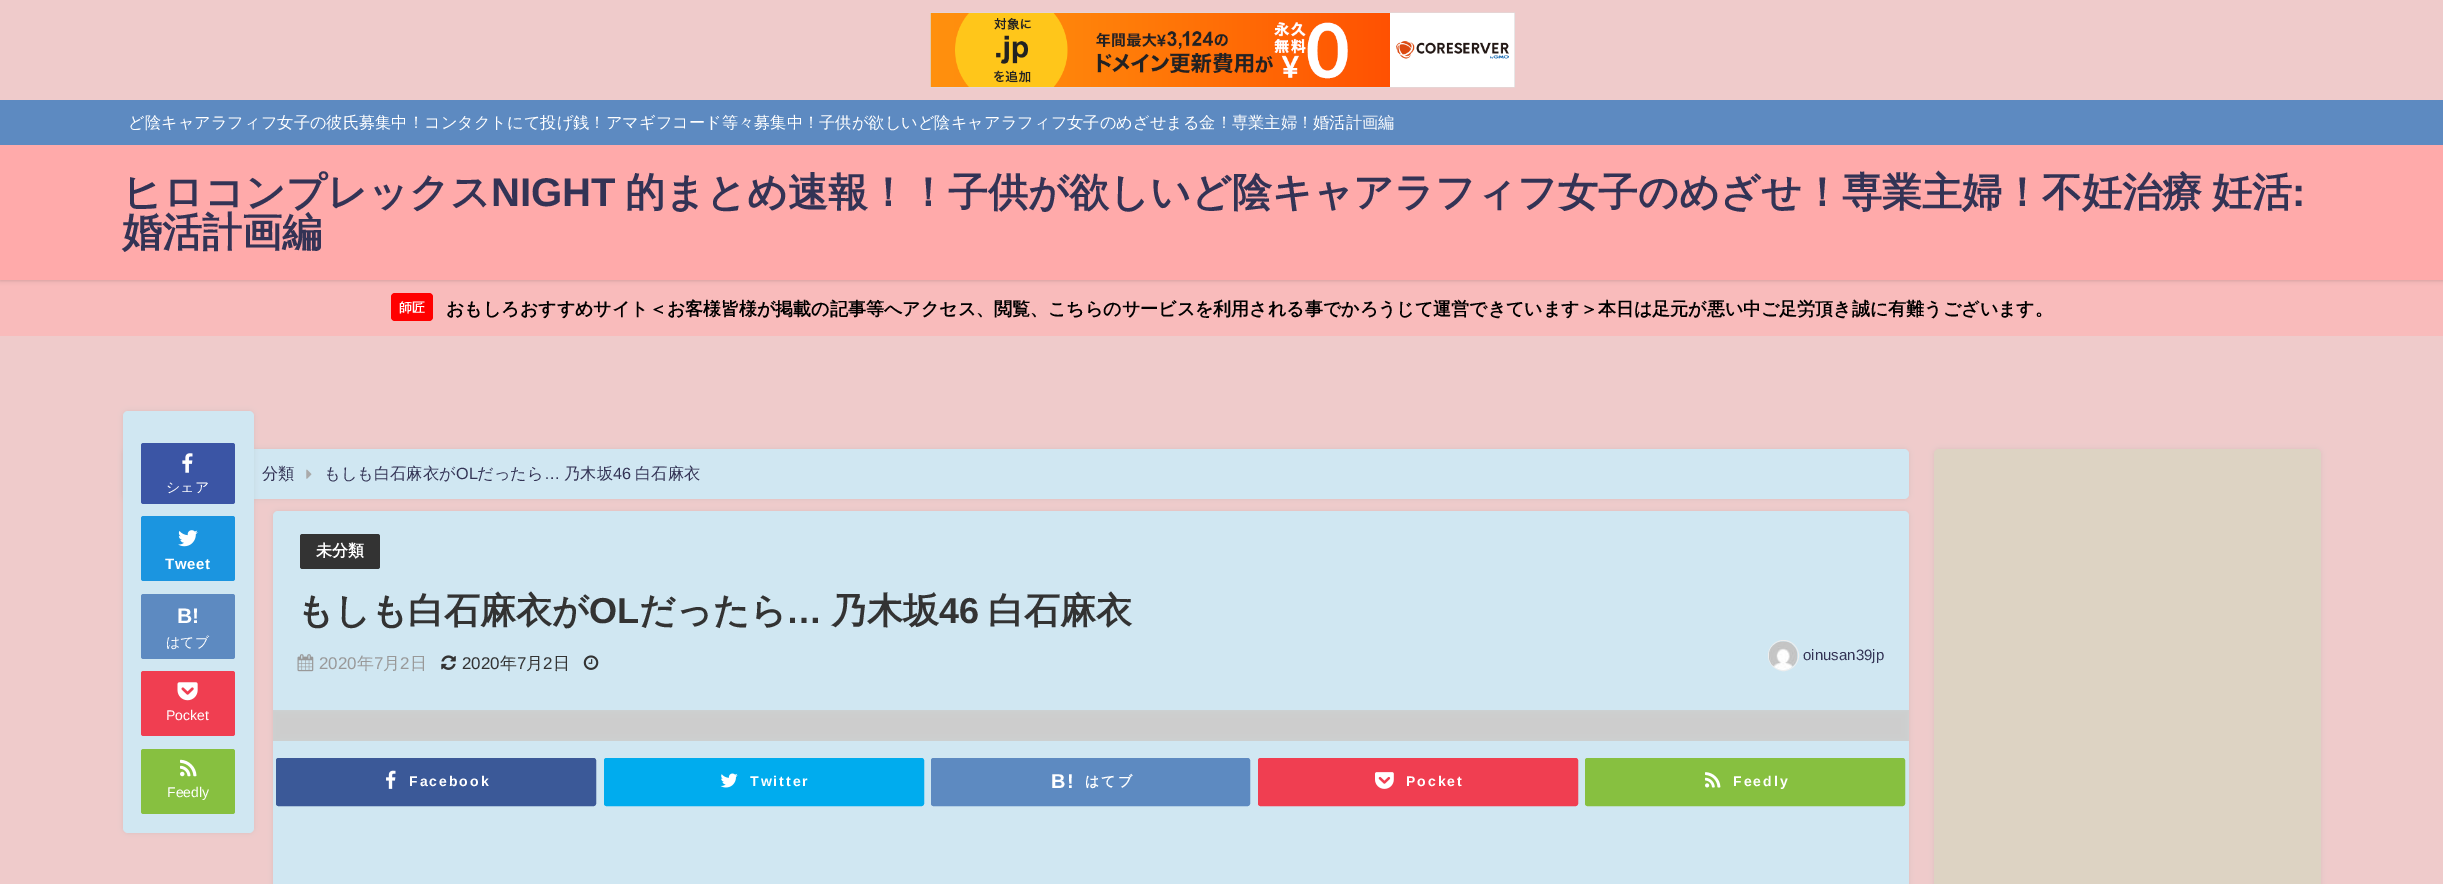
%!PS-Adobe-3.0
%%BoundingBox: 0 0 2443 884
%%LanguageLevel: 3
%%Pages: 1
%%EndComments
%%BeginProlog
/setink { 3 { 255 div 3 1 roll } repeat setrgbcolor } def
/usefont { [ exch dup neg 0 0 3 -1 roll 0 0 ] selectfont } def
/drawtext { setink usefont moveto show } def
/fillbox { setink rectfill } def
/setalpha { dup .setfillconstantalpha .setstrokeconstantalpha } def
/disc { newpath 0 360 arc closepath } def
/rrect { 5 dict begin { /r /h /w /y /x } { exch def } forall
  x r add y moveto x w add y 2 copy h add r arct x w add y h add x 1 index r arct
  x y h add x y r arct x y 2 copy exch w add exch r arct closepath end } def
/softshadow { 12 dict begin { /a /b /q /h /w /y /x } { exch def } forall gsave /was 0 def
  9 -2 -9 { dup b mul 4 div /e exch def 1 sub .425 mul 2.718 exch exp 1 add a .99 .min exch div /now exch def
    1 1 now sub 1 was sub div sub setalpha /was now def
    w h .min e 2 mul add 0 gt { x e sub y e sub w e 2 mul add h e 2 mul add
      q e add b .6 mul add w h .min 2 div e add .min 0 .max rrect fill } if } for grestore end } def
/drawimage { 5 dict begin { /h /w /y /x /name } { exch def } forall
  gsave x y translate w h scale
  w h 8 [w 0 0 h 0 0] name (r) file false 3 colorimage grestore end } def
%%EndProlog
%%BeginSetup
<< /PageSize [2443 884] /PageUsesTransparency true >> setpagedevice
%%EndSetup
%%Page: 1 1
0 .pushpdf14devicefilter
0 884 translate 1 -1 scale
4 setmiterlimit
0 0 2443 884 239 203 203 fillbox
(assets/img1.rgb) 930 12 585 76 drawimage
0 280 2443 56 249 187 187 fillbox
gsave
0 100 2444 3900 rectclip
0 0 0 setink
0 100 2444 180 0 2.5 0.2 softshadow
grestore
0 145 2443 135 255 170 170 fillbox
0 100 2443 45 93 138 193 fillbox
(ど陰キャアラフィフ女子の彼氏募集中！コンタクトにて投げ銭！アマギフコード等々募集中！子供が欲しいど陰キャアラフィフ女子のめざせまる金！専業主婦！婚活計画編) 128 128 /WenQuanYiZenHei-Medium 16.25 255 255 255 drawtext
(ヒロコンプレックス) 122 206 /WenQuanYiZenHei-Bold 40 51 51 85 drawtext
(NIGHT) 491 206 /LiberationSans-Bold 40 51 51 85 drawtext
/WenQuanYiZenHei-Bold 40 usefont
625 206 moveto -2 0 32 (的まとめ速報！！子供が欲しいど陰キャアラフィフ女子のめざせ！専業主婦！不妊治療 妊活) widthshow
(:) 2292 206 /LiberationSans-Bold 40 51 51 85 drawtext
(婚活計画編) 122 246 /WenQuanYiZenHei-Bold 40 51 51 85 drawtext
255 0 0 setink
391 293 42 28 4 rrect fill
(師匠) 399 312 /WenQuanYiZenHei-Bold 13 255 255 255 drawtext
(おもしろおすすめサイト＜お客様皆様が掲載の記事等へアクセス、閲覧、こちらのサービスを利用される事でかろうじて運営できています＞本日は足元が悪い中ご足労頂き誠に有難うございます。) 446 315 /WenQuanYiZenHei-Bold 18 0 0 0 drawtext
150 150 150 setink
123 449 1786 50 5 3 0.2 softshadow
208 231 242 setink
123 449 1786 50 5 rrect fill
(分類) 262 479 /WenQuanYiZenHei-Medium 16.25 51 51 85 drawtext
(assets/img2.rgb) 306 469 6 10 drawimage
(もしも白石麻衣が) 324 479 /WenQuanYiZenHei-Medium 16.25 51 51 85 drawtext
(OL) 456 479 /LiberationSans-Regular 16.25 51 51 85 drawtext
(だったら) 477 479 /WenQuanYiZenHei-Medium 16.25 51 51 85 drawtext
(…) 544 479 /LiberationSans-Regular 16.25 51 51 85 drawtext
(乃木坂) 564 479 /WenQuanYiZenHei-Medium 16.25 51 51 85 drawtext
(46) 613 479 /LiberationSans-Regular 16.25 51 51 85 drawtext
(白石麻衣) 635 479 /WenQuanYiZenHei-Medium 16.25 51 51 85 drawtext
150 150 150 setink
123 411 131 422 5 3 0.2 softshadow
273 511 1636 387 5 3 0.2 softshadow
208 231 242 setink
273 511 1636 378 5 rrect fill
gsave
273 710 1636 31 rectclip
204 204 204 setink
266 704 1649 44 0 6 1 softshadow
grestore
123 411 131 422 5 rrect fill
59 85 165 setink
141 443 94 61 2.5 rrect fill
(assets/img3.rgb) 182 453 11 20 drawimage
(シェア) 166 492 /WenQuanYiZenHei-Medium 14 255 255 255 drawtext
27 149 224 setink
141 516 94 65 2.5 rrect fill
(assets/img4.rgb) 178 530 20 17 drawimage
/LiberationSans-Bold 15 usefont
255 255 255 setink
165 569 moveto 0.5 0 (Tweet) ashow
93 138 193 setink
141 594 94 65 2.5 rrect fill
(B!) 177 623 /LiberationSans-Bold 21 255 255 255 drawtext
(はてブ) 166 647 /WenQuanYiZenHei-Medium 14 255 255 255 drawtext
240 62 81 setink
141 671 94 65 2.5 rrect fill
(assets/img5.rgb) 177 682 21 19 drawimage
(Pocket) 166 720 /LiberationSans-Regular 14 255 255 255 drawtext
135 192 64 setink
141 749 94 65 2.5 rrect fill
(assets/img6.rgb) 180 759 17 18 drawimage
(Feedly) 167 797 /LiberationSans-Regular 14 255 255 255 drawtext
51 51 51 setink
300 534 80 35 2.5 rrect fill
(未分類) 316 556 /WenQuanYiZenHei-Bold 16 255 255 255 drawtext
(もしも白石麻衣が) 297 623 /WenQuanYiZenHei-Bold 36 51 51 51 drawtext
(OL) 589 623 /LiberationSans-Bold 36 51 51 51 drawtext
(だったら) 639 623 /WenQuanYiZenHei-Bold 36 51 51 51 drawtext
(…) 786 623 /LiberationSans-Bold 36 51 51 51 drawtext
(乃木坂) 831 623 /WenQuanYiZenHei-Bold 36 51 51 51 drawtext
(46) 939 623 /LiberationSans-Bold 36 51 51 51 drawtext
(白石麻衣) 988 623 /WenQuanYiZenHei-Bold 36 51 51 51 drawtext
(assets/img7.rgb) 297 654 17 18 drawimage
(2020) 319 669 /LiberationSans-Regular 17 153 153 153 drawtext
(年) 357 669 /WenQuanYiZenHei-Medium 17 153 153 153 drawtext
(7) 374 669 /LiberationSans-Regular 17 153 153 153 drawtext
(月) 383 669 /WenQuanYiZenHei-Medium 17 153 153 153 drawtext
(2) 400 669 /LiberationSans-Regular 17 153 153 153 drawtext
(日) 410 669 /WenQuanYiZenHei-Medium 17 153 153 153 drawtext
(assets/img8.rgb) 441 655 15 15 drawimage
(2020) 462 669 /LiberationSans-Regular 17 51 51 51 drawtext
(年) 500 669 /WenQuanYiZenHei-Medium 17 51 51 51 drawtext
(7) 517 669 /LiberationSans-Regular 17 51 51 51 drawtext
(月) 526 669 /WenQuanYiZenHei-Medium 17 51 51 51 drawtext
(2) 543 669 /LiberationSans-Regular 17 51 51 51 drawtext
(日) 553 669 /WenQuanYiZenHei-Medium 17 51 51 51 drawtext
(assets/img9.rgb) 583 655 16 15 drawimage
238 238 238 setink
1783.5 655.5 15 disc stroke
(assets/img10.rgb) 1769 641 29 29 drawimage
(oinusan39jp) 1803 660 /LiberationSans-Regular 15 51 51 85 drawtext
59 89 152 setink
277.5 759.5 317 45 1 rrect gsave fill grestore
3 setlinewidth
stroke
(assets/img11.rgb) 386 770 10 19 drawimage
/LiberationSans-Bold 14 usefont
255 255 255 setink
409 786 moveto 2 0 (Facebook) ashow
0 172 238 setink
605.5 759.5 317 45 1 rrect gsave fill grestore
stroke
(assets/img12.rgb) 720 773 18 15 drawimage
255 255 255 setink
750 786 moveto 2 0 (Twitter) ashow
93 138 193 setink
932.5 759.5 316 45 1 rrect gsave fill grestore
stroke
/LiberationSans-Bold 20 usefont
255 255 255 setink
1051 788 moveto 2 0 (B!) ashow
/WenQuanYiZenHei-Bold 14 usefont
1085 786 moveto 2 0 (はてブ) ashow
240 62 81 setink
1259.5 759.5 317 45 1 rrect gsave fill grestore
stroke
(assets/img13.rgb) 1375 772 19 17 drawimage
/LiberationSans-Bold 14 usefont
255 255 255 setink
1406 786 moveto 2 0 (Pocket) ashow
135 192 64 setink
1586.5 759.5 317 45 1 rrect gsave fill grestore
stroke
(assets/img14.rgb) 1705 772 16 16 drawimage
255 255 255 setink
1733 786 moveto 2 0 (Feedly) ashow
150 150 150 setink
1934 449 387 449 5 3 0.2 softshadow
221 211 195 setink
1934 449 387 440 5 rrect fill
.poppdf14devicefilter showpage
%%EOF
